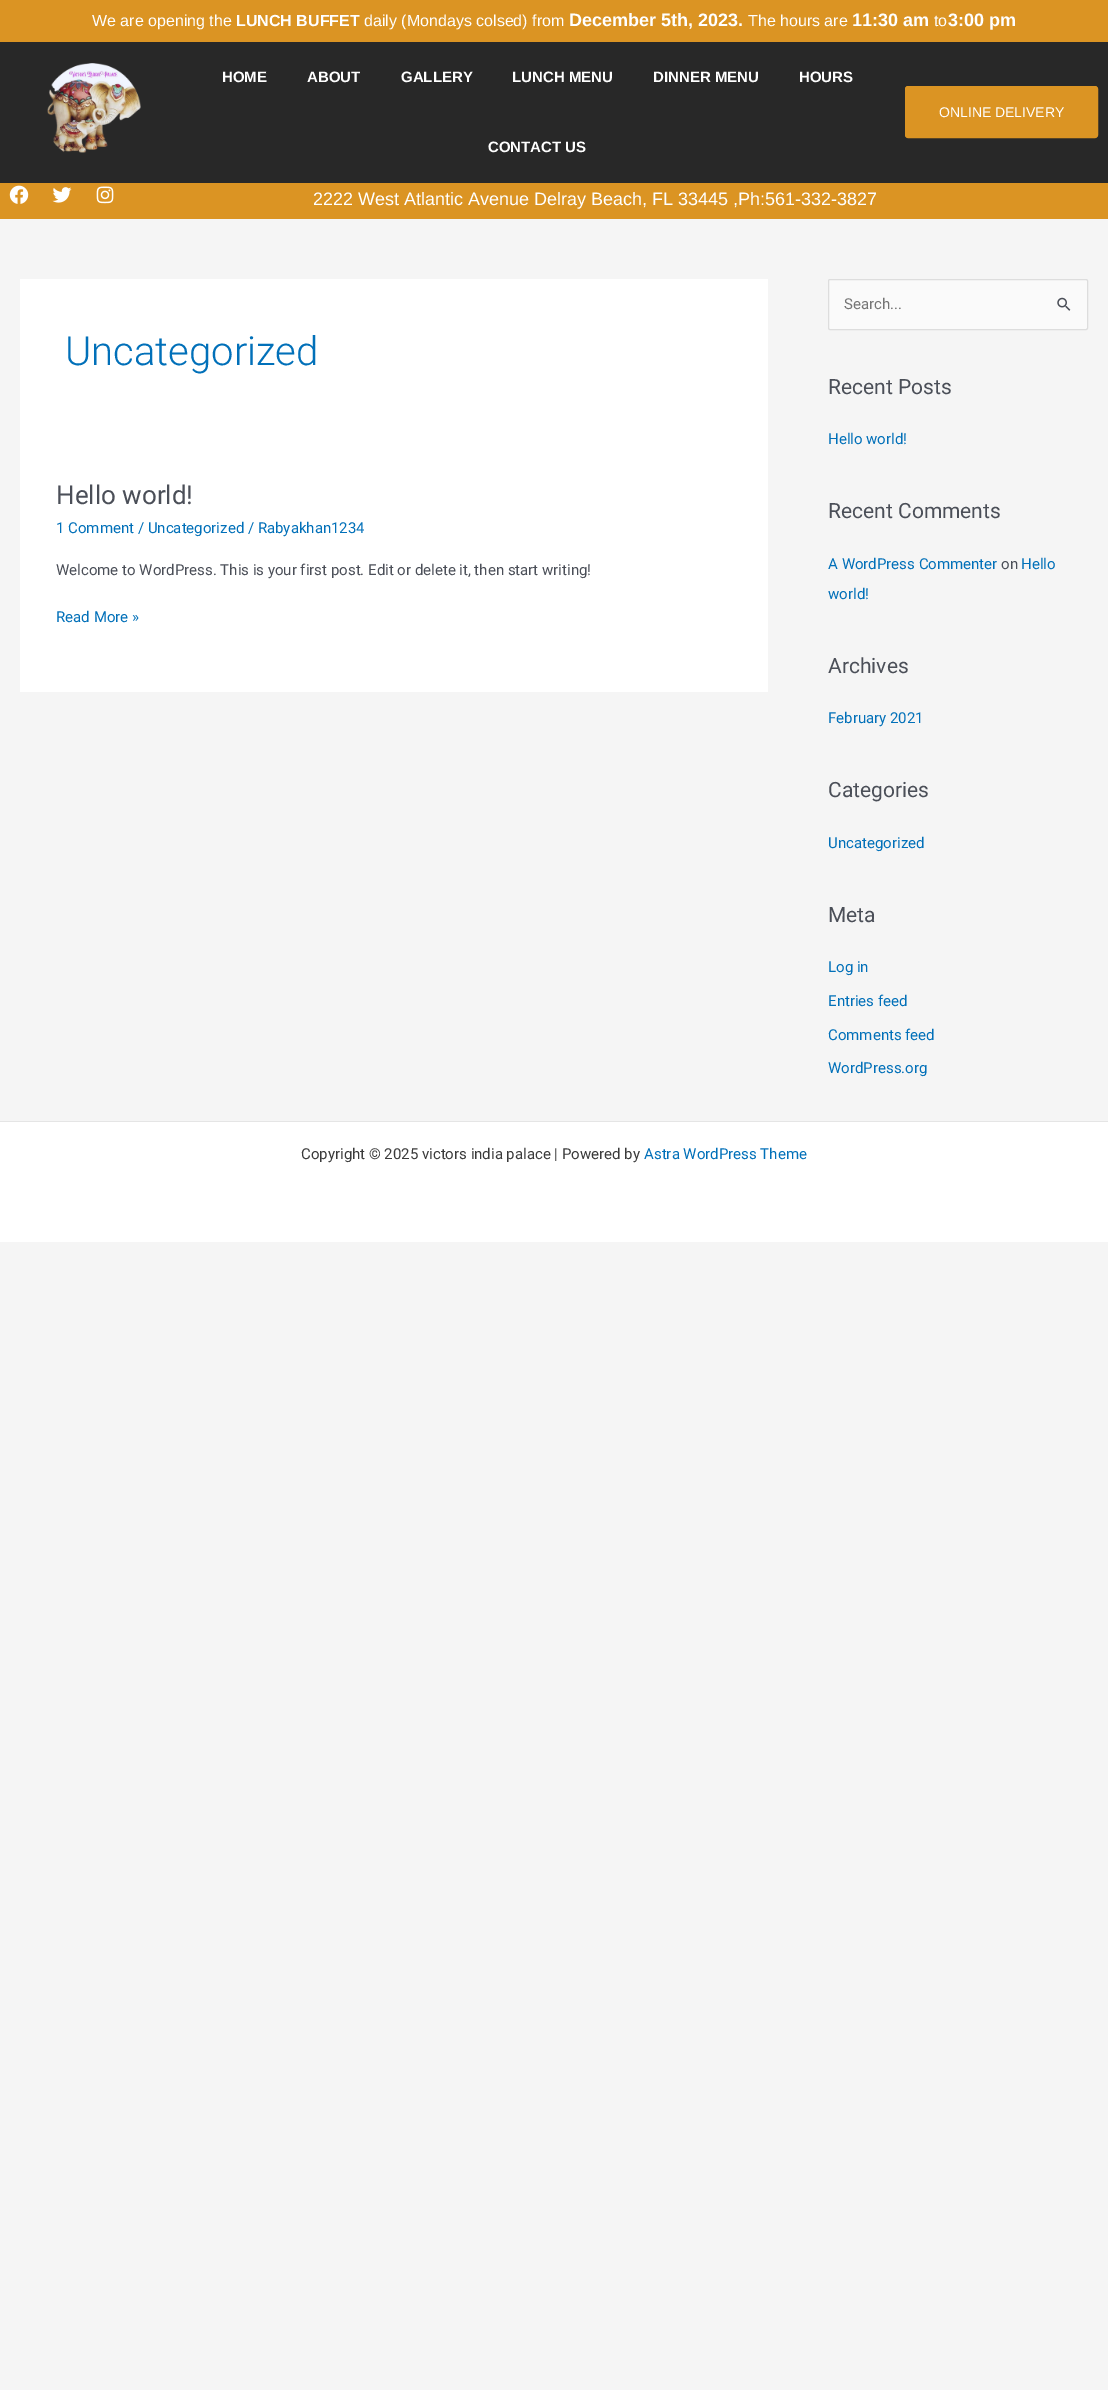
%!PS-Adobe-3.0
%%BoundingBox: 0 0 1108 2390
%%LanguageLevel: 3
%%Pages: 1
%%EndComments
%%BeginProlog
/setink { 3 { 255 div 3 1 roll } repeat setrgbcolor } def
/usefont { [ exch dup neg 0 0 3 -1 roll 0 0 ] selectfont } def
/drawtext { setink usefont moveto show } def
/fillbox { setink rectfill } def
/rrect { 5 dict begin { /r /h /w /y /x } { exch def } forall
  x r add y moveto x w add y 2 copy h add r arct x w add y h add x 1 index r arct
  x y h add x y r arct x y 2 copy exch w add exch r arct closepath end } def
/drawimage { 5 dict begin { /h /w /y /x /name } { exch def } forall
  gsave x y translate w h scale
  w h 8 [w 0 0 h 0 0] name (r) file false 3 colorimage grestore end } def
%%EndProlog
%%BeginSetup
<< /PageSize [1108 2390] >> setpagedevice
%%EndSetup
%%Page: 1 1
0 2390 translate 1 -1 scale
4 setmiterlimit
0 0 1108 2390 245 245 245 fillbox
0 0 1108 42 219 148 35 fillbox
(We are opening the) 92 26 /LiberationSans-Regular 16 255 255 255 drawtext
(LUNCH BUFFET) 236 26 /LiberationSans-Bold 16 255 255 255 drawtext
(daily \(Mondays colsed\) from) 364 26 /LiberationSans-Regular 16 255 255 255 drawtext
(December 5th, 2023.) 569 26 /LiberationSans-Bold 18 255 255 255 drawtext
(The hours are) 748 26 /LiberationSans-Regular 16 255 255 255 drawtext
(11:30 am) 852 26 /LiberationSans-Bold 18 255 255 255 drawtext
(to) 934 26 /LiberationSans-Regular 16 255 255 255 drawtext
(3:00 pm) 948 26 /LiberationSans-Bold 18 255 255 255 drawtext
0 42 1108 141 40 40 40 fillbox
(assets/img1.rgb) 47 63 94 90 drawimage
(HOME) 222 82 /LiberationSans-Bold 15 255 255 255 drawtext
(ABOUT) 307 82 /LiberationSans-Bold 15 255 255 255 drawtext
(GALLERY) 401 82 /LiberationSans-Bold 15 255 255 255 drawtext
(LUNCH MENU) 512 82 /LiberationSans-Bold 15 255 255 255 drawtext
(DINNER MENU) 653 82 /LiberationSans-Bold 15 255 255 255 drawtext
(HOURS) 799 82 /LiberationSans-Bold 15 255 255 255 drawtext
(CONTACT US) 488 152 /LiberationSans-Bold 15 255 255 255 drawtext
219 148 35 setink
907 88 189 48 1 rrect gsave fill grestore
4 setlinewidth
stroke
(ONLINE DELIVERY) 939 117 /LiberationSans-Regular 14 255 255 255 drawtext
0 183 1108 36 219 148 35 fillbox
(assets/img2.rgb) 9 185 20 19 drawimage
(assets/img3.rgb) 52 187 20 16 drawimage
(assets/img4.rgb) 96 186 18 18 drawimage
(2222 West Atlantic Avenue Delray Beach, FL 33445 ,Ph:561-332-3827) 313 205 /LiberationSans-Regular 18 255 255 255 drawtext
20 279 748 413 255 255 255 fillbox
(Uncategorized) 65 365 /Roboto-Light 40 1 112 185 drawtext
(Hello world!) 56 504 /Roboto-Regular 26 75 79 88 drawtext
(1 Comment / Uncategorized / Rabyakhan1234) 56 533 /Roboto-Regular 15 1 112 185 drawtext
(Welcome to WordPress. This is your first post. Edit or delete it, then start writing!) 56 575 /Roboto-Regular 15 75 79 88 drawtext
(Read More ») 56 622 /Roboto-Regular 15 1 112 185 drawtext
250 250 250 setink
828.5 279.5 259 50 1.5 rrect gsave fill grestore
221 221 221 setink
1 setlinewidth
stroke
(Search...) 844 309 /Roboto-Regular 15 117 117 117 drawtext
(assets/img5.rgb) 1057 297 14 14 drawimage
(Recent Posts) 828 394 /Roboto-Regular 21 75 79 88 drawtext
(Hello world!) 828 444 /Roboto-Regular 15 1 112 185 drawtext
(Recent Comments) 828 518 /Roboto-Regular 21 75 79 88 drawtext
(A WordPress Commenter) 828 569 /Roboto-Regular 15 1 112 185 drawtext
(on) 1001 569 /Roboto-Regular 15 75 79 88 drawtext
(Hello) 1021 569 /Roboto-Regular 15 1 112 185 drawtext
(world!) 828 599 /Roboto-Regular 15 1 112 185 drawtext
(Archives) 828 673 /Roboto-Regular 21 75 79 88 drawtext
(February 2021) 828 723 /Roboto-Regular 15 1 112 185 drawtext
(Categories) 828 797 /Roboto-Regular 21 75 79 88 drawtext
(Uncategorized) 828 848 /Roboto-Regular 15 1 112 185 drawtext
(Meta) 828 922 /Roboto-Regular 21 75 79 88 drawtext
(Log in) 828 972 /Roboto-Regular 15 1 112 185 drawtext
(Entries feed) 828 1006 /Roboto-Regular 15 1 112 185 drawtext
(Comments feed) 828 1040 /Roboto-Regular 15 1 112 185 drawtext
(WordPress.org) 828 1073 /Roboto-Regular 15 1 112 185 drawtext
0 1122 1108 120 255 255 255 fillbox
0 1121 1108 1 229 229 229 fillbox
(Copyright © 2025 victors india palace | Powered by) 301 1159 /Roboto-Regular 15 58 58 58 drawtext
(Astra WordPress Theme) 644 1159 /Roboto-Regular 15 1 112 185 drawtext
showpage
%%EOF
